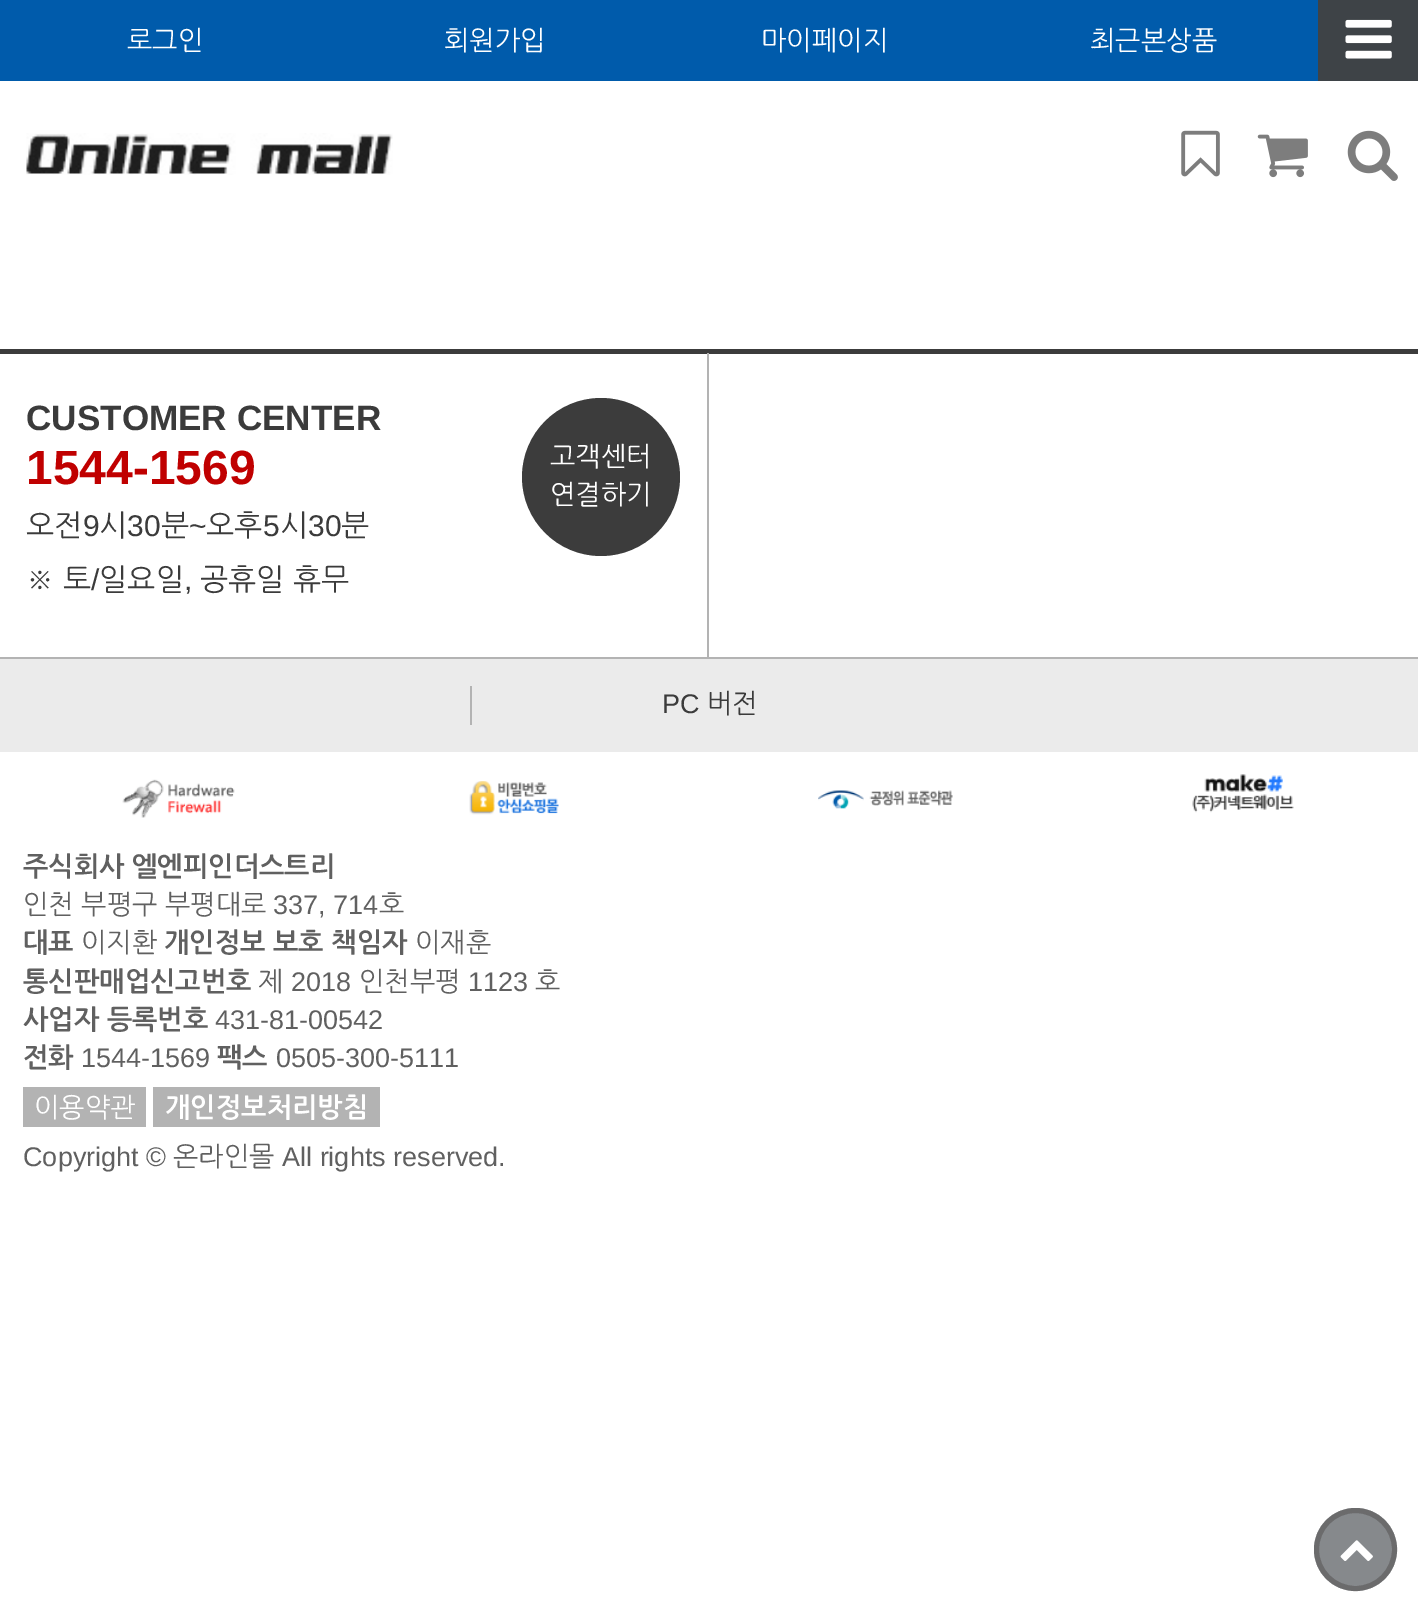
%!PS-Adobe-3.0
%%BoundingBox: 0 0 1418 1606
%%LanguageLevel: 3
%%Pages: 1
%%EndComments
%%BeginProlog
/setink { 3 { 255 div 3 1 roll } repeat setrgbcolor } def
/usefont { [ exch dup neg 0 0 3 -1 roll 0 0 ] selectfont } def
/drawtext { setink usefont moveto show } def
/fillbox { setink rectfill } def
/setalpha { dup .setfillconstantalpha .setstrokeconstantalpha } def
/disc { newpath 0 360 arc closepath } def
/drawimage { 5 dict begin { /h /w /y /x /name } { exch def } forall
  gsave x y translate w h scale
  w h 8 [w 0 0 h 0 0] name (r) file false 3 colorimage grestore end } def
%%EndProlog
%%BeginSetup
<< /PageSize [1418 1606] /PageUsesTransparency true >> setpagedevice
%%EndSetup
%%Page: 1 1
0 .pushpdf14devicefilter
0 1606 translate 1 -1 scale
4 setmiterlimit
0 0 1418 1606 255 255 255 fillbox
0 0 1318 81 0 91 171 fillbox
(로그인) 127 50 /NanumGothic-Regular 27 255 255 255 drawtext
(회원가입) 444 50 /NanumGothic-Regular 27 255 255 255 drawtext
(마이페이지) 761 50 /NanumGothic-Regular 27 255 255 255 drawtext
(최근본상품) 1090 50 /NanumGothic-Regular 27 255 255 255 drawtext
1318 0 100 81 62 67 71 fillbox
(assets/img1.rgb) 1345 19 47 40 drawimage
(assets/img2.rgb) 26 133 367 42 drawimage
(assets/img3.rgb) 1181 130 39 47 drawimage
(assets/img4.rgb) 1257 134 51 44 drawimage
(assets/img5.rgb) 1347 130 51 51 drawimage
0 349 1418 5 60 60 60 fillbox
0 657 1418 2 179 179 179 fillbox
707 353 2 304 179 179 179 fillbox
(CUSTOMER CENTER) 26 430 /LiberationSans-Bold 35.1 59 59 59 drawtext
(1544-1569) 26 484 /LiberationSans-Bold 48 192 0 0 drawtext
(오전) 26 536 /NanumGothic-Regular 30 59 59 59 drawtext
(9) 83 536 /LiberationSans-Regular 30 59 59 59 drawtext
(시) 99 536 /NanumGothic-Regular 30 59 59 59 drawtext
(30) 127 536 /LiberationSans-Regular 30 59 59 59 drawtext
(분) 161 536 /NanumGothic-Regular 30 59 59 59 drawtext
(~) 189 536 /LiberationSans-Regular 30 59 59 59 drawtext
(오후) 206 536 /NanumGothic-Regular 30 59 59 59 drawtext
(5) 263 536 /LiberationSans-Regular 30 59 59 59 drawtext
(시) 280 536 /NanumGothic-Regular 30 59 59 59 drawtext
(30) 308 536 /LiberationSans-Regular 30 59 59 59 drawtext
(분) 341 536 /NanumGothic-Regular 30 59 59 59 drawtext
(※ 토 일요일) 26 590 /NanumGothic-Regular 30 59 59 59 drawtext
(공휴일 휴무) 200 590 /NanumGothic-Regular 30 59 59 59 drawtext
(/) 91 590 /LiberationSans-Regular 30 59 59 59 drawtext
(,) 184 590 /LiberationSans-Regular 30 59 59 59 drawtext
60 60 60 setink
601 477 79 disc fill
(고객센터) 550 466 /NanumGothic-Regular 27 255 255 255 drawtext
(연결하기) 550 504 /NanumGothic-Regular 27 255 255 255 drawtext
0 659 1418 93 235 235 235 fillbox
470 686 2 39 179 179 179 fillbox
(PC) 662 713 /LiberationSans-Regular 27 59 59 59 drawtext
(버전) 707 713 /NanumGothic-Regular 27 59 59 59 drawtext
(assets/img6.rgb) 122 779 113 39 drawimage
(assets/img7.rgb) 469 781 90 34 drawimage
(assets/img8.rgb) 818 790 135 19 drawimage
(assets/img9.rgb) 1192 774 102 39 drawimage
(주식회사 엘엔피인더스트리) 23 876 /NanumGothic-Bold 27 96 96 96 drawtext
(인천 부평구 부평대로) 23 914 /NanumGothic-Regular 27 96 96 96 drawtext
(337, 714) 273 914 /LiberationSans-Regular 27 96 96 96 drawtext
(호) 379 914 /NanumGothic-Regular 27 96 96 96 drawtext
(대표) 23 952 /NanumGothic-Bold 27 96 96 96 drawtext
(이지환) 81 952 /NanumGothic-Regular 27 96 96 96 drawtext
(개인정보 보호 책임자) 164 952 /NanumGothic-Bold 27 96 96 96 drawtext
(이재훈) 415 952 /NanumGothic-Regular 27 96 96 96 drawtext
(통신판매업신고번호) 23 991 /NanumGothic-Bold 27 96 96 96 drawtext
(제) 258 991 /NanumGothic-Regular 27 96 96 96 drawtext
(2018) 291 991 /LiberationSans-Regular 27 96 96 96 drawtext
(인천부평) 359 991 /NanumGothic-Regular 27 96 96 96 drawtext
(1123) 468 991 /LiberationSans-Regular 27 96 96 96 drawtext
(호) 535 991 /NanumGothic-Regular 27 96 96 96 drawtext
(사업자 등록번호) 23 1029 /NanumGothic-Bold 27 96 96 96 drawtext
(431-81-00542) 215 1029 /LiberationSans-Regular 27 96 96 96 drawtext
(전화) 23 1067 /NanumGothic-Bold 27 96 96 96 drawtext
(1544-1569) 81 1067 /LiberationSans-Regular 27 96 96 96 drawtext
(팩스) 217 1067 /NanumGothic-Bold 27 96 96 96 drawtext
(0505-300-5111) 276 1067 /LiberationSans-Regular 27 96 96 96 drawtext
23 1087 123 40 179 179 179 fillbox
(이용약관) 34 1117 /NanumGothic-Regular 27 255 255 255 drawtext
153 1087 227 40 179 179 179 fillbox
(개인정보처리방침) 165 1117 /NanumGothic-Bold 27 255 255 255 drawtext
(Copyright ©) 23 1166 /LiberationSans-Regular 27 96 96 96 drawtext
(온라인몰) 173 1166 /NanumGothic-Regular 27 96 96 96 drawtext
(All rights reserved.) 282 1166 /LiberationSans-Regular 27 96 96 96 drawtext
134 137 140 setink
1355.5 1549.5 41.5 disc fill
0.59 setalpha
88 86 86 setink
5 setlinewidth
1355.5 1549.5 39 disc stroke
1 setalpha
(assets/img10.rgb) 1340 1540 33 21 drawimage
.poppdf14devicefilter showpage
%%EOF
